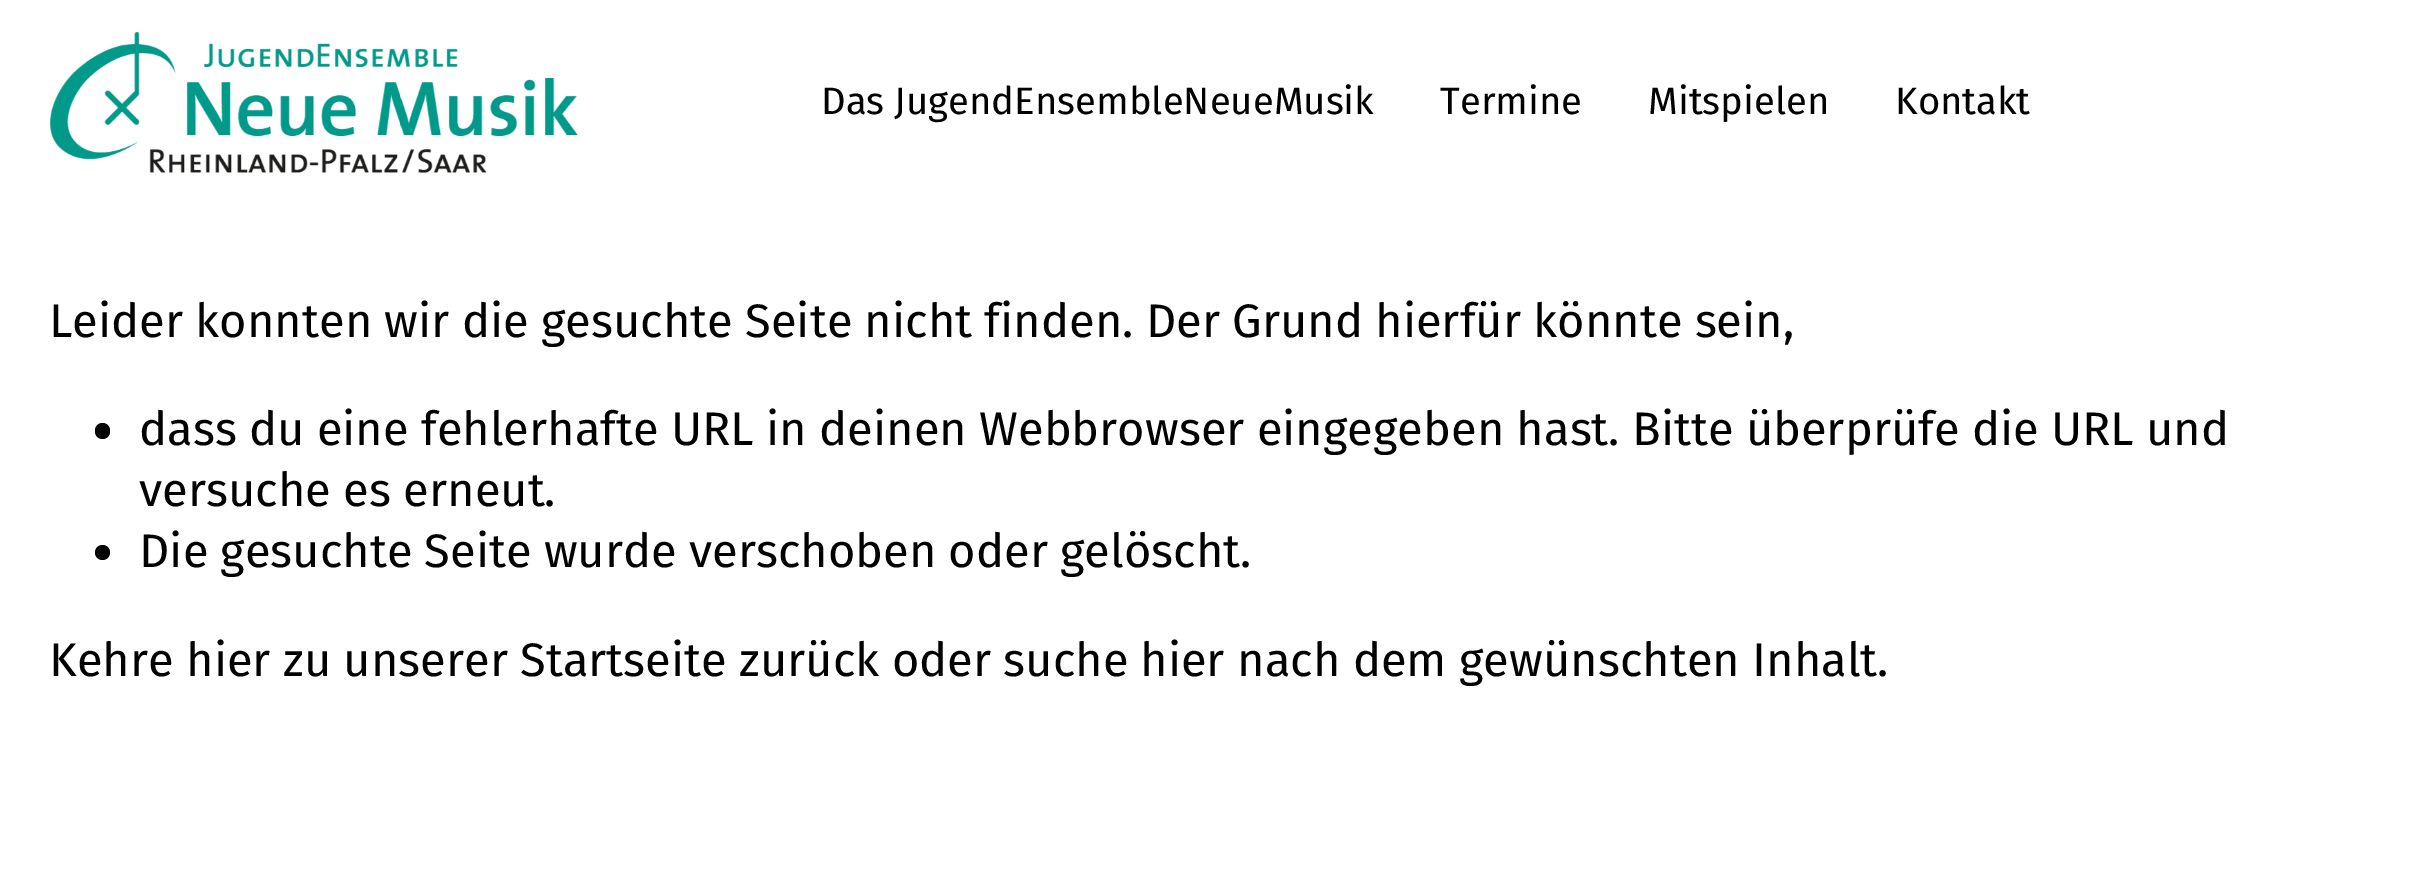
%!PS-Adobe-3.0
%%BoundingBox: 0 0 2436 891
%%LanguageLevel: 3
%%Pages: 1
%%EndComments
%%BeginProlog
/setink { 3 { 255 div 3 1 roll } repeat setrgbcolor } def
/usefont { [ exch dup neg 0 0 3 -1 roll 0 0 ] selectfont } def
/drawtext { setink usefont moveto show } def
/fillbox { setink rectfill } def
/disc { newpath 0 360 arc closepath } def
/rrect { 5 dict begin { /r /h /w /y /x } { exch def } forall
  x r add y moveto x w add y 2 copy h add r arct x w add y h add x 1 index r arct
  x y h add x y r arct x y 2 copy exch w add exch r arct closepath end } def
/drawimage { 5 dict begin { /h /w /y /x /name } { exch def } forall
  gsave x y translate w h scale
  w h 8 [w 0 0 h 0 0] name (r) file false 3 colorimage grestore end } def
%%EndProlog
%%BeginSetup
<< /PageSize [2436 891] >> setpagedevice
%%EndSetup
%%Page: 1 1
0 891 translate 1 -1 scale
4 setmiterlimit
0 0 2436 891 255 255 255 fillbox
(assets/img1.rgb) 50 32 528 141 drawimage
(Das JugendEnsembleNeueMusik) 821 114 /FiraSans-Regular 38.25 0 0 0 drawtext
(Termine) 1440 114 /FiraSans-Regular 38.25 0 0 0 drawtext
(Mitspielen) 1648 114 /FiraSans-Regular 38.25 0 0 0 drawtext
(Kontakt) 1895 114 /FiraSans-Regular 38.25 0 0 0 drawtext
/FiraSans-Regular 47 usefont
49 337 moveto -0.2 0 32 (Leider konnten wir die gesuchte Seite nicht finden. Der Grund hierfür könnte sein,) widthshow
95 423 15 16 7.5 rrect fill
139 445 moveto -0.2 0 32 (dass du eine fehlerhafte URL in deinen Webbrowser eingegeben hast. Bitte überprüfe die URL und) widthshow
(versuche es erneut.) 139 506 /FiraSans-Regular 47 0 0 0 drawtext
102.5 552.5 7.5 disc fill
139 567 moveto -0.25 0 32 (Die gesuchte Seite wurde verschoben oder gelöscht.) widthshow
(Kehre hier) 49 676 /FiraSans-Regular 47 0 0 0 drawtext
(zu unserer Startseite zurück oder suche) 283 676 /FiraSans-Regular 47 0 0 0 drawtext
(hier) 1140 676 /FiraSans-Regular 47 0 0 0 drawtext
(nach dem gewünschten Inhalt.) 1237 676 /FiraSans-Regular 47 0 0 0 drawtext
showpage
%%EOF
